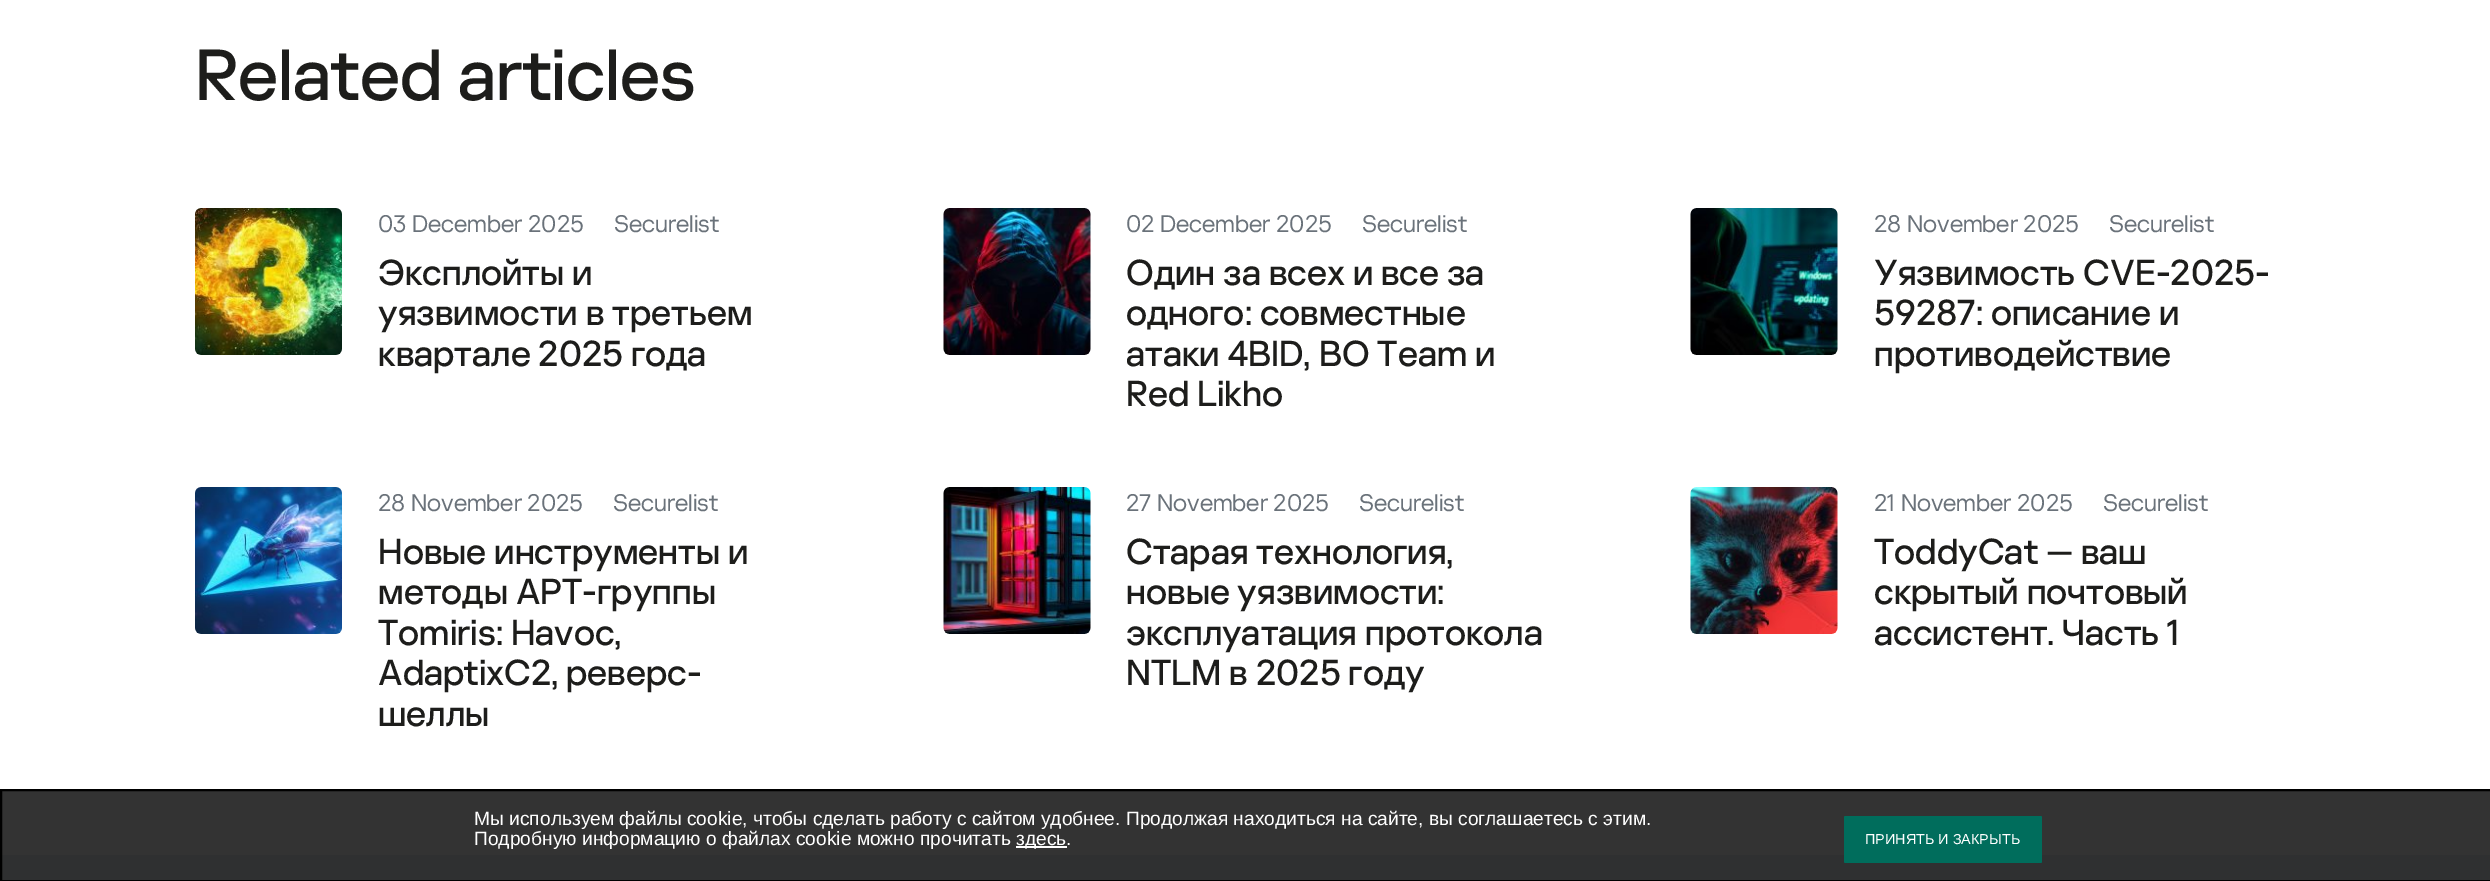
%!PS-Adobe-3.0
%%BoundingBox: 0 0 2490 881
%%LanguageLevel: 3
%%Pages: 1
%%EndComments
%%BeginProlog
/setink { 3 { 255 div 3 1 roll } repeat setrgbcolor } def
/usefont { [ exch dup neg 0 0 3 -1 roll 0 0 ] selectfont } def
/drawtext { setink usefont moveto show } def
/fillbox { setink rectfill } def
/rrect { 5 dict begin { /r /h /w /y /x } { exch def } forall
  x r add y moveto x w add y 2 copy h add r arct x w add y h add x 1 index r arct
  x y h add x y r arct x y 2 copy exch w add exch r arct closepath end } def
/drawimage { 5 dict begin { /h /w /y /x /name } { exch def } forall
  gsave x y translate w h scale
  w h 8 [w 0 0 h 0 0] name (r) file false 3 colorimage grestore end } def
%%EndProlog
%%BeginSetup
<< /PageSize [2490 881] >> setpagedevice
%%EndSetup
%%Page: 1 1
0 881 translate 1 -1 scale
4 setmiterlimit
0 0 2490 881 47 48 49 fillbox
0 0 2490 789 255 255 255 fillbox
2 791 2488 64 51 51 51 fillbox
(Related articles) 195 100 /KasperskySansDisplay-Medium 72 29 29 27 drawtext
(assets/img1.rgb) 195 208 147 147 drawimage
(03 December 2025) 378 232 /KasperskySansDisplay-Regular 24 106 114 122 drawtext
(Securelist) 614 232 /KasperskySansDisplay-Regular 24 106 114 122 drawtext
(Эксплойты и) 378 285 /KasperskySansDisplay-Medium 36 29 29 27 drawtext
(уязвимости в третьем) 378 325 /KasperskySansDisplay-Medium 36 29 29 27 drawtext
(квартале 2025 года) 378 366 /KasperskySansDisplay-Medium 36 29 29 27 drawtext
(assets/img2.rgb) 943 208 148 147 drawimage
(02 December 2025) 1126 232 /KasperskySansDisplay-Regular 24 106 114 122 drawtext
(Securelist) 1362 232 /KasperskySansDisplay-Regular 24 106 114 122 drawtext
(Один за всех и все за) 1126 285 /KasperskySansDisplay-Medium 36 29 29 27 drawtext
(одного: совместные) 1126 325 /KasperskySansDisplay-Medium 36 29 29 27 drawtext
(атаки 4BID, BO Team и) 1126 366 /KasperskySansDisplay-Medium 36 29 29 27 drawtext
(Red Likho) 1126 406 /KasperskySansDisplay-Medium 36 29 29 27 drawtext
(assets/img3.rgb) 1690 208 148 147 drawimage
(28 November 2025) 1874 232 /KasperskySansDisplay-Regular 24 106 114 122 drawtext
(Securelist) 2109 232 /KasperskySansDisplay-Regular 24 106 114 122 drawtext
(Уязвимость CVE-2025-) 1874 285 /KasperskySansDisplay-Medium 36 29 29 27 drawtext
(59287: описание и) 1874 325 /KasperskySansDisplay-Medium 36 29 29 27 drawtext
(противодействие) 1874 366 /KasperskySansDisplay-Medium 36 29 29 27 drawtext
(assets/img4.rgb) 195 487 147 147 drawimage
(28 November 2025) 378 511 /KasperskySansDisplay-Regular 24 106 114 122 drawtext
(Securelist) 613 511 /KasperskySansDisplay-Regular 24 106 114 122 drawtext
(Новые инструменты и) 378 564 /KasperskySansDisplay-Medium 36 29 29 27 drawtext
(методы APT-группы) 378 604 /KasperskySansDisplay-Medium 36 29 29 27 drawtext
(Tomiris: Havoc,) 378 645 /KasperskySansDisplay-Medium 36 29 29 27 drawtext
(AdaptixC2, реверс-) 378 685 /KasperskySansDisplay-Medium 36 29 29 27 drawtext
(шеллы) 378 726 /KasperskySansDisplay-Medium 36 29 29 27 drawtext
(assets/img5.rgb) 943 487 148 147 drawimage
(27 November 2025) 1126 511 /KasperskySansDisplay-Regular 24 106 114 122 drawtext
(Securelist) 1359 511 /KasperskySansDisplay-Regular 24 106 114 122 drawtext
(Старая технология,) 1126 564 /KasperskySansDisplay-Medium 36 29 29 27 drawtext
(новые уязвимости:) 1126 604 /KasperskySansDisplay-Medium 36 29 29 27 drawtext
(эксплуатация протокола) 1126 645 /KasperskySansDisplay-Medium 36 29 29 27 drawtext
(NTLM в 2025 году) 1126 685 /KasperskySansDisplay-Medium 36 29 29 27 drawtext
(assets/img6.rgb) 1690 487 148 147 drawimage
(21 November 2025) 1874 511 /KasperskySansDisplay-Regular 24 106 114 122 drawtext
(Securelist) 2103 511 /KasperskySansDisplay-Regular 24 106 114 122 drawtext
(ToddyCat — ваш) 1874 564 /KasperskySansDisplay-Medium 36 29 29 27 drawtext
(скрытый почтовый) 1874 604 /KasperskySansDisplay-Medium 36 29 29 27 drawtext
(ассистент. Часть 1) 1874 645 /KasperskySansDisplay-Medium 36 29 29 27 drawtext
0 0 0 setink
2 setlinewidth
1 790 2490 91 rectstroke
(Мы используем файлы cookie, чтобы сделать работу с сайтом удобнее. Продолжая находиться на сайте, вы соглашаетесь с этим.) 474 825 /LiberationSans-Regular 19.2 255 255 255 drawtext
(Подробную информацию о файлах cookie можно прочитать) 474 845 /LiberationSans-Regular 19.2 255 255 255 drawtext
1016 846 51 2 255 255 255 fillbox
(здесь.) 1016 845 /LiberationSans-Regular 19.2 255 255 255 drawtext
0 109 92 setink
1844 816 198 47 1.5 rrect fill
(ПРИНЯТЬ И ЗАКРЫТЬ) 1865 844 /LiberationSans-Regular 14.4 255 255 255 drawtext
showpage
%%EOF
